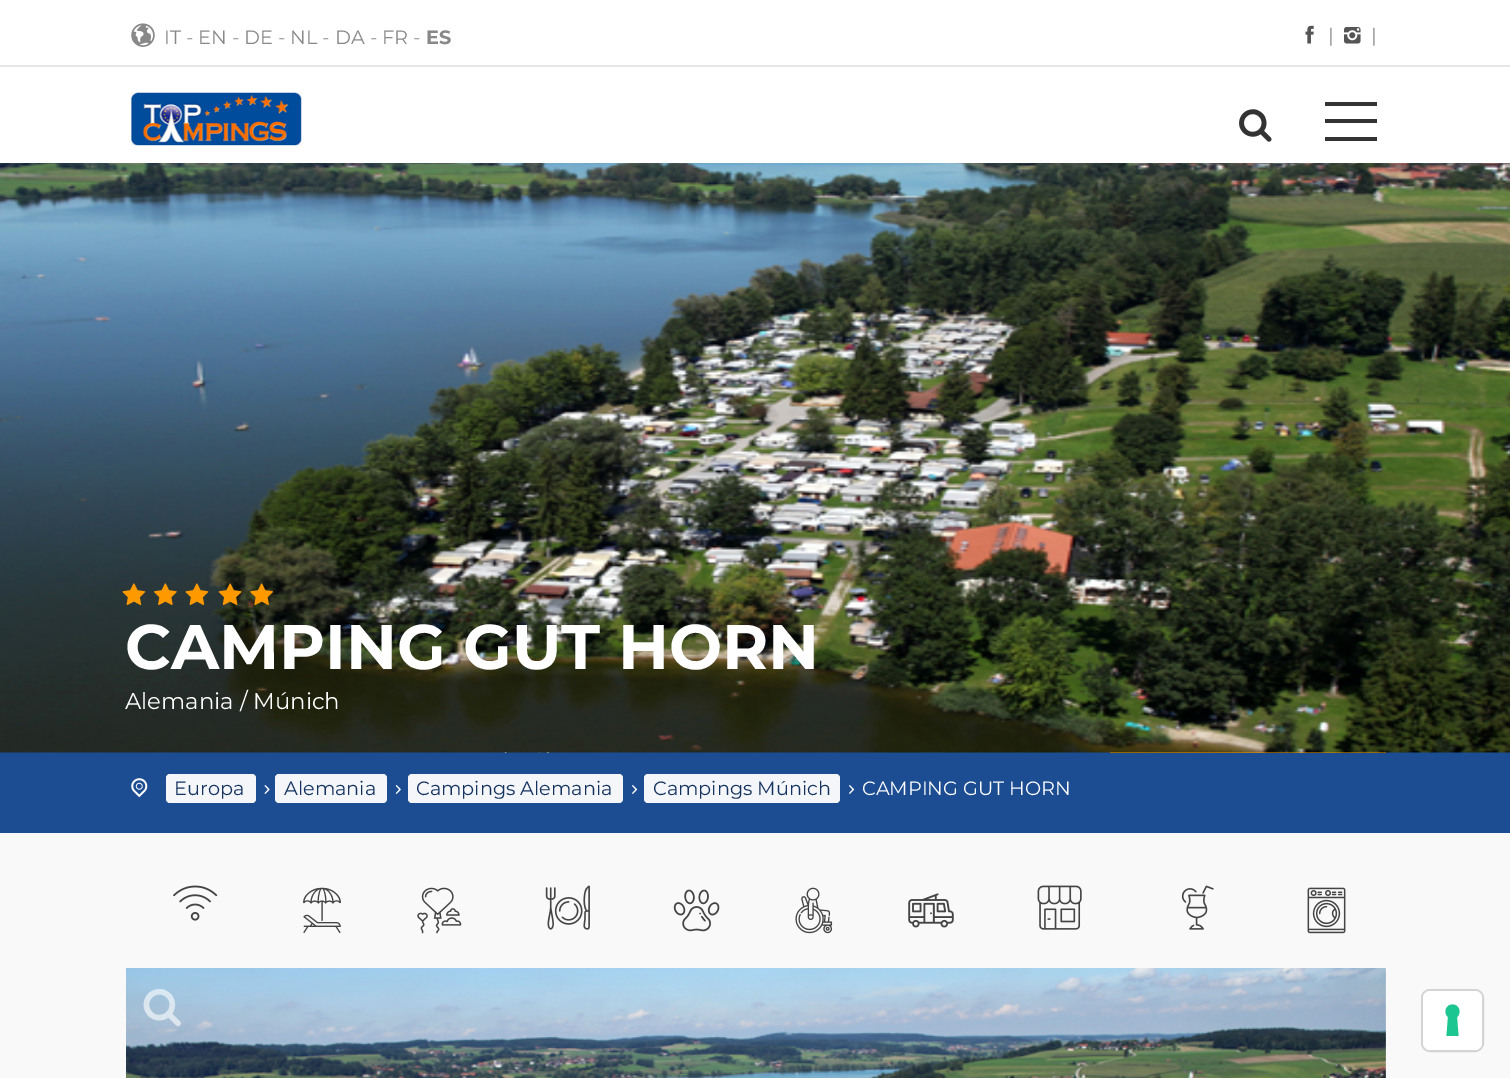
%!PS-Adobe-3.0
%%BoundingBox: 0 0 1510 1078
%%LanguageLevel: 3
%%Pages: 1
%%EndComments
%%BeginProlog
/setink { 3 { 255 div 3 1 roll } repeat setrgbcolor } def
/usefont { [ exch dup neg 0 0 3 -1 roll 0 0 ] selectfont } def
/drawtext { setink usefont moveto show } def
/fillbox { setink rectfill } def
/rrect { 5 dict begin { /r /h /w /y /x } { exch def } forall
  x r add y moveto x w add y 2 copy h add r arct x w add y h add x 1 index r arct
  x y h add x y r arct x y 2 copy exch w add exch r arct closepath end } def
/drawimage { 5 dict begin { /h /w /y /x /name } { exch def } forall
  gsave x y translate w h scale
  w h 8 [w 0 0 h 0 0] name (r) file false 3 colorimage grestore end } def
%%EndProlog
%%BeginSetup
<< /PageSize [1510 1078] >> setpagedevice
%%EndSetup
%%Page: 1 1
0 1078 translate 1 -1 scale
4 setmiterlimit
0 0 1510 1078 28 76 146 fillbox
0 0 1510 163 255 255 255 fillbox
0 65 1510 2 230 230 230 fillbox
(assets/img1.rgb) 131 23 24 24 drawimage
(IT - EN - DE - NL - DA - FR -) 164 44 /Montserrat-Regular 19.25 136 136 136 drawtext
(ES) 426 44 /Montserrat-Bold 19.25 136 136 136 drawtext
(assets/img2.rgb) 1305 25 9 19 drawimage
(|) 1328 42 /Montserrat-Regular 19.25 136 136 136 drawtext
(assets/img3.rgb) 1344 27 17 17 drawimage
(|) 1371 42 /Montserrat-Regular 19.25 136 136 136 drawtext
(assets/img4.rgb) 131 92 171 54 drawimage
(assets/img5.rgb) 1239 109 33 33 drawimage
1325 119 52 4 51 51 51 fillbox
1325 102 52 4 51 51 51 fillbox
1325 137 52 4 51 51 51 fillbox
1110 752 276 1 239 150 0 fillbox
(assets/img6.rgb) 0 163 1510 590 drawimage
(assets/img7.rgb) 122 583 24 22 drawimage
(assets/img8.rgb) 154 583 23 22 drawimage
(assets/img9.rgb) 185 583 24 22 drawimage
(assets/img10.rgb) 218 583 24 22 drawimage
(assets/img11.rgb) 250 583 23 22 drawimage
(CAMPING GUT HORN) 125 669 /Montserrat-Bold 63 255 255 255 drawtext
(Alemania / Múnich) 125 709 /Montserrat-Regular 22.75 255 255 255 drawtext
0 833 1510 245 249 249 249 fillbox
(assets/img12.rgb) 131 778 17 20 drawimage
244 246 250 setink
166 774 90 29 4 rrect fill
(Europa) 174 795 /Montserrat-Regular 19.25 20 51 96 drawtext
(assets/img13.rgb) 264 785 6 9 drawimage
244 246 250 setink
275 774 112 29 4 rrect fill
(Alemania) 284 795 /Montserrat-Regular 19.25 20 51 96 drawtext
(assets/img14.rgb) 395 785 6 9 drawimage
244 246 250 setink
408 774 215 29 4 rrect fill
(Campings Alemania) 416 795 /Montserrat-Regular 19.25 20 51 96 drawtext
(assets/img15.rgb) 632 785 6 9 drawimage
244 246 250 setink
644 774 196 29 4 rrect fill
(Campings Múnich) 653 795 /Montserrat-Regular 19.25 20 51 96 drawtext
(assets/img15.rgb) 849 785 6 9 drawimage
(CAMPING GUT HORN) 862 795 /Montserrat-Regular 19.25 255 255 255 drawtext
(assets/img16.rgb) 173 885 45 36 drawimage
(assets/img17.rgb) 303 887 38 47 drawimage
(assets/img18.rgb) 417 887 45 47 drawimage
(assets/img19.rgb) 545 885 45 45 drawimage
(assets/img20.rgb) 673 889 47 43 drawimage
(assets/img21.rgb) 795 887 38 47 drawimage
(assets/img22.rgb) 908 893 46 35 drawimage
(assets/img23.rgb) 1037 885 45 45 drawimage
(assets/img24.rgb) 1181 885 33 45 drawimage
(assets/img25.rgb) 1307 887 39 47 drawimage
(assets/img26.rgb) 126 968 1260 110 drawimage
(assets/img27.rgb) 143 988 38 39 drawimage
212 212 212 setink
2 setlinewidth
1422 990 61 61 8 rrect stroke
255 255 255 setink
1423 991 59 59 7 rrect fill
28 198 145 setink
1452.5 1004.5 moveto 1459 1004.5 1462 1012.5 1457 1017 curveto 1458.5 1036 lineto 1446.5 1036 lineto 1448 1017 lineto 1443 1012.5 1446 1004.5 1452.5 1004.5 curveto closepath eofill
showpage
%%EOF
